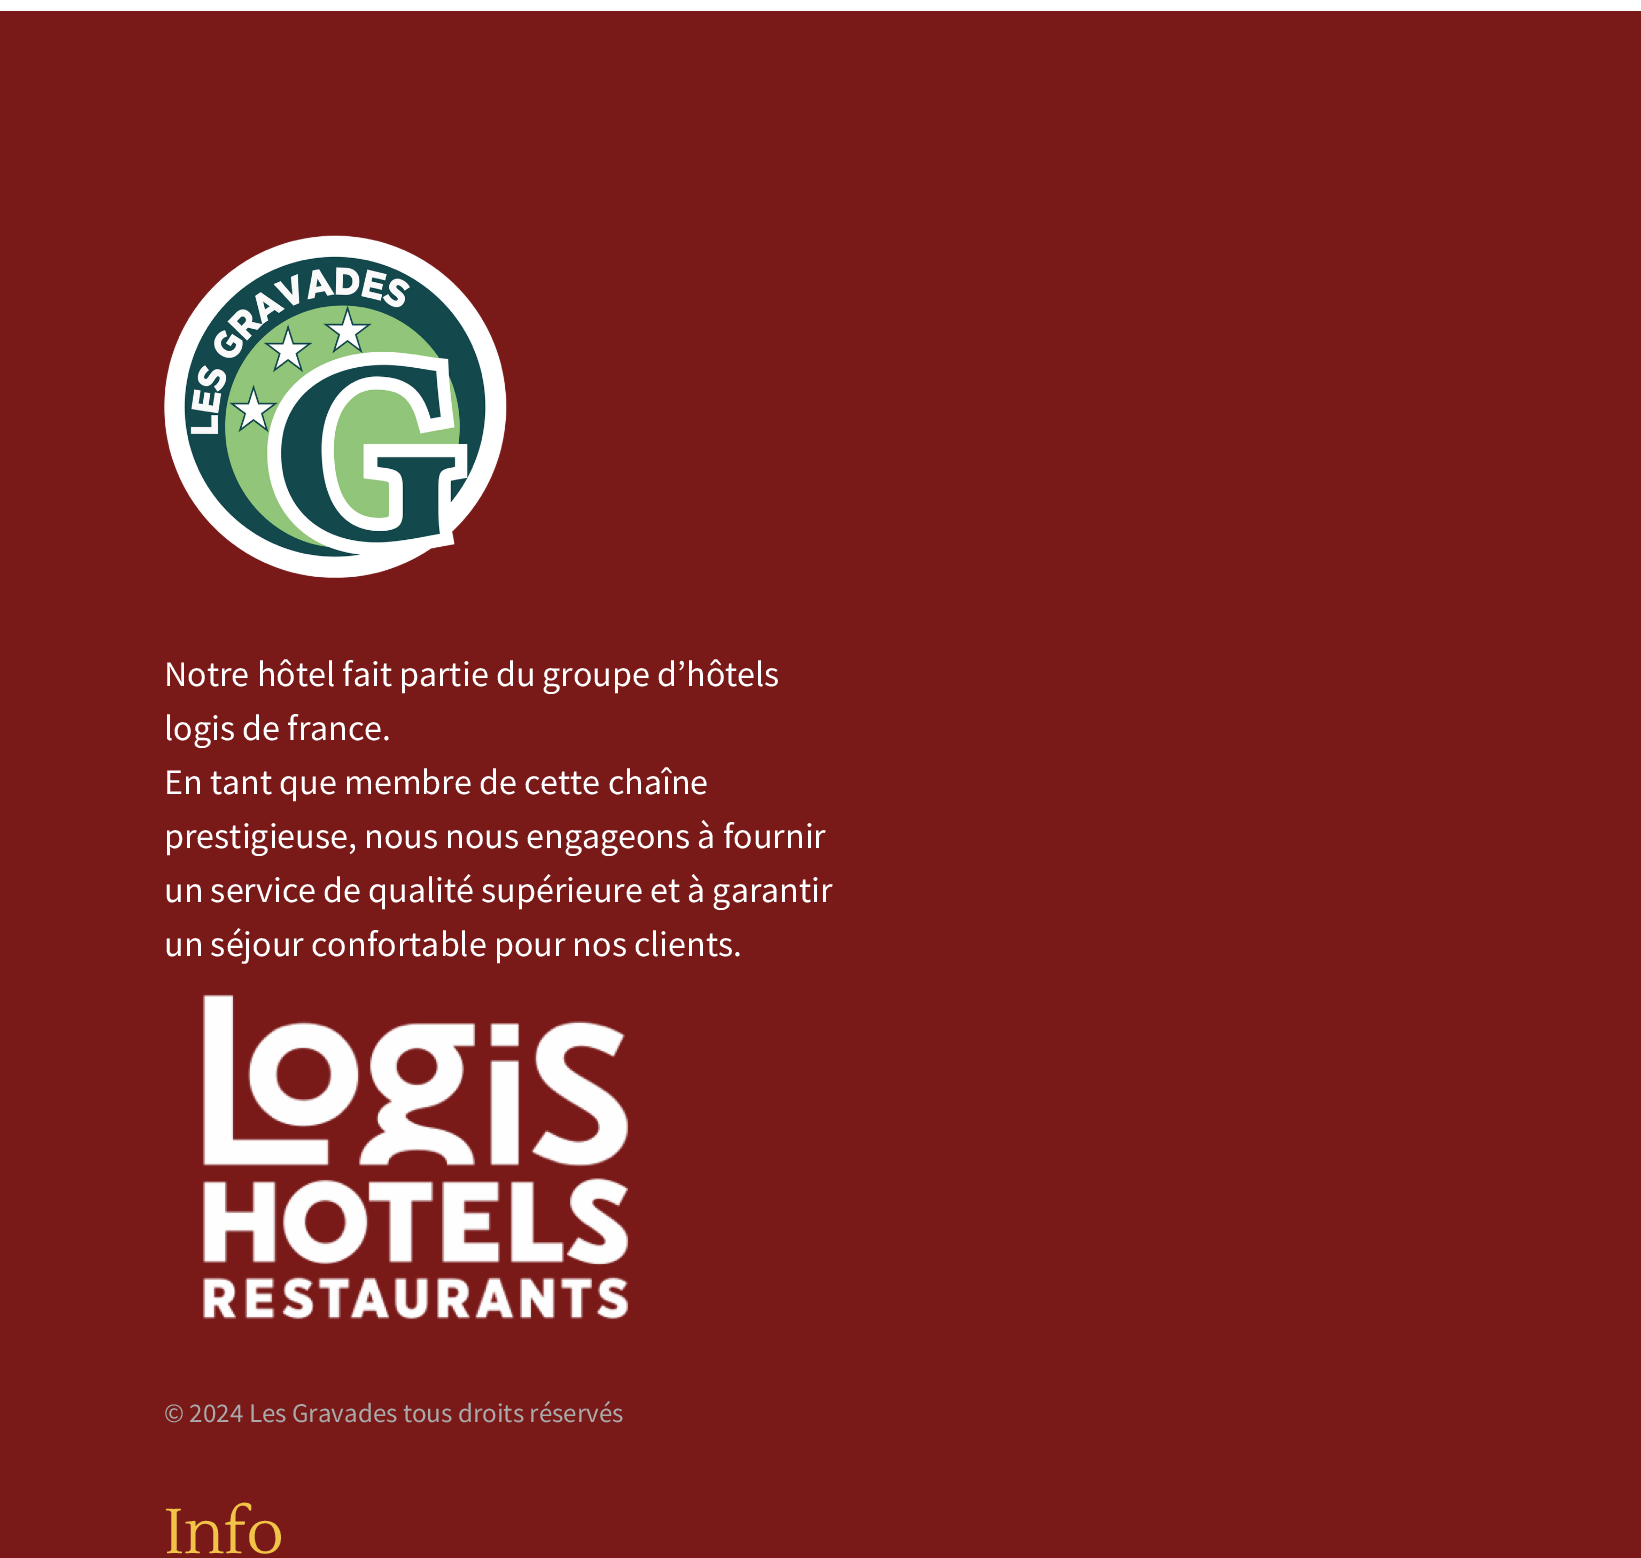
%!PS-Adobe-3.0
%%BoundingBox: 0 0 1641 1558
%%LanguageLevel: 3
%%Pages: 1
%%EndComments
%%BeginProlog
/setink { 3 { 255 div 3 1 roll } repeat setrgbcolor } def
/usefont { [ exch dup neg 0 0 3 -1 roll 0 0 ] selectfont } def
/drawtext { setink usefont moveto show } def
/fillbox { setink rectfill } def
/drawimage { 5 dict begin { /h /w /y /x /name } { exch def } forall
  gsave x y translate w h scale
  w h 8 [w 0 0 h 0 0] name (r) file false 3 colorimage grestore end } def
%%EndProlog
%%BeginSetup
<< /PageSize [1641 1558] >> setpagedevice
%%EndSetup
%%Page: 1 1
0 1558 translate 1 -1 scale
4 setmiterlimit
0 0 1641 1558 255 255 255 fillbox
0 11 1641 1547 121 26 25 fillbox
(assets/img1.rgb) 164 235 343 343 drawimage
(Notre hôtel fait partie du groupe d’hôtels) 164 686 /SourceSansPro-Regular 36 255 255 255 drawtext
(logis de france.) 164 740 /SourceSansPro-Regular 36 255 255 255 drawtext
(En tant que membre de cette chaîne) 164 794 /SourceSansPro-Regular 36 255 255 255 drawtext
(prestigieuse, nous nous engageons à fournir) 164 848 /SourceSansPro-Regular 36 255 255 255 drawtext
(un service de qualité supérieure et à garantir) 164 902 /SourceSansPro-Regular 36 255 255 255 drawtext
(un séjour confortable pour nos clients.) 164 956 /SourceSansPro-Regular 36 255 255 255 drawtext
(assets/img2.rgb) 202 994 427 326 drawimage
(© 2024 Les Gravades tous droits réservés) 164 1422 /SourceSansPro-Regular 27 170 170 170 drawtext
(Info) 164 1553 /Lustria-Regular 63 241 195 70 drawtext
showpage
%%EOF
